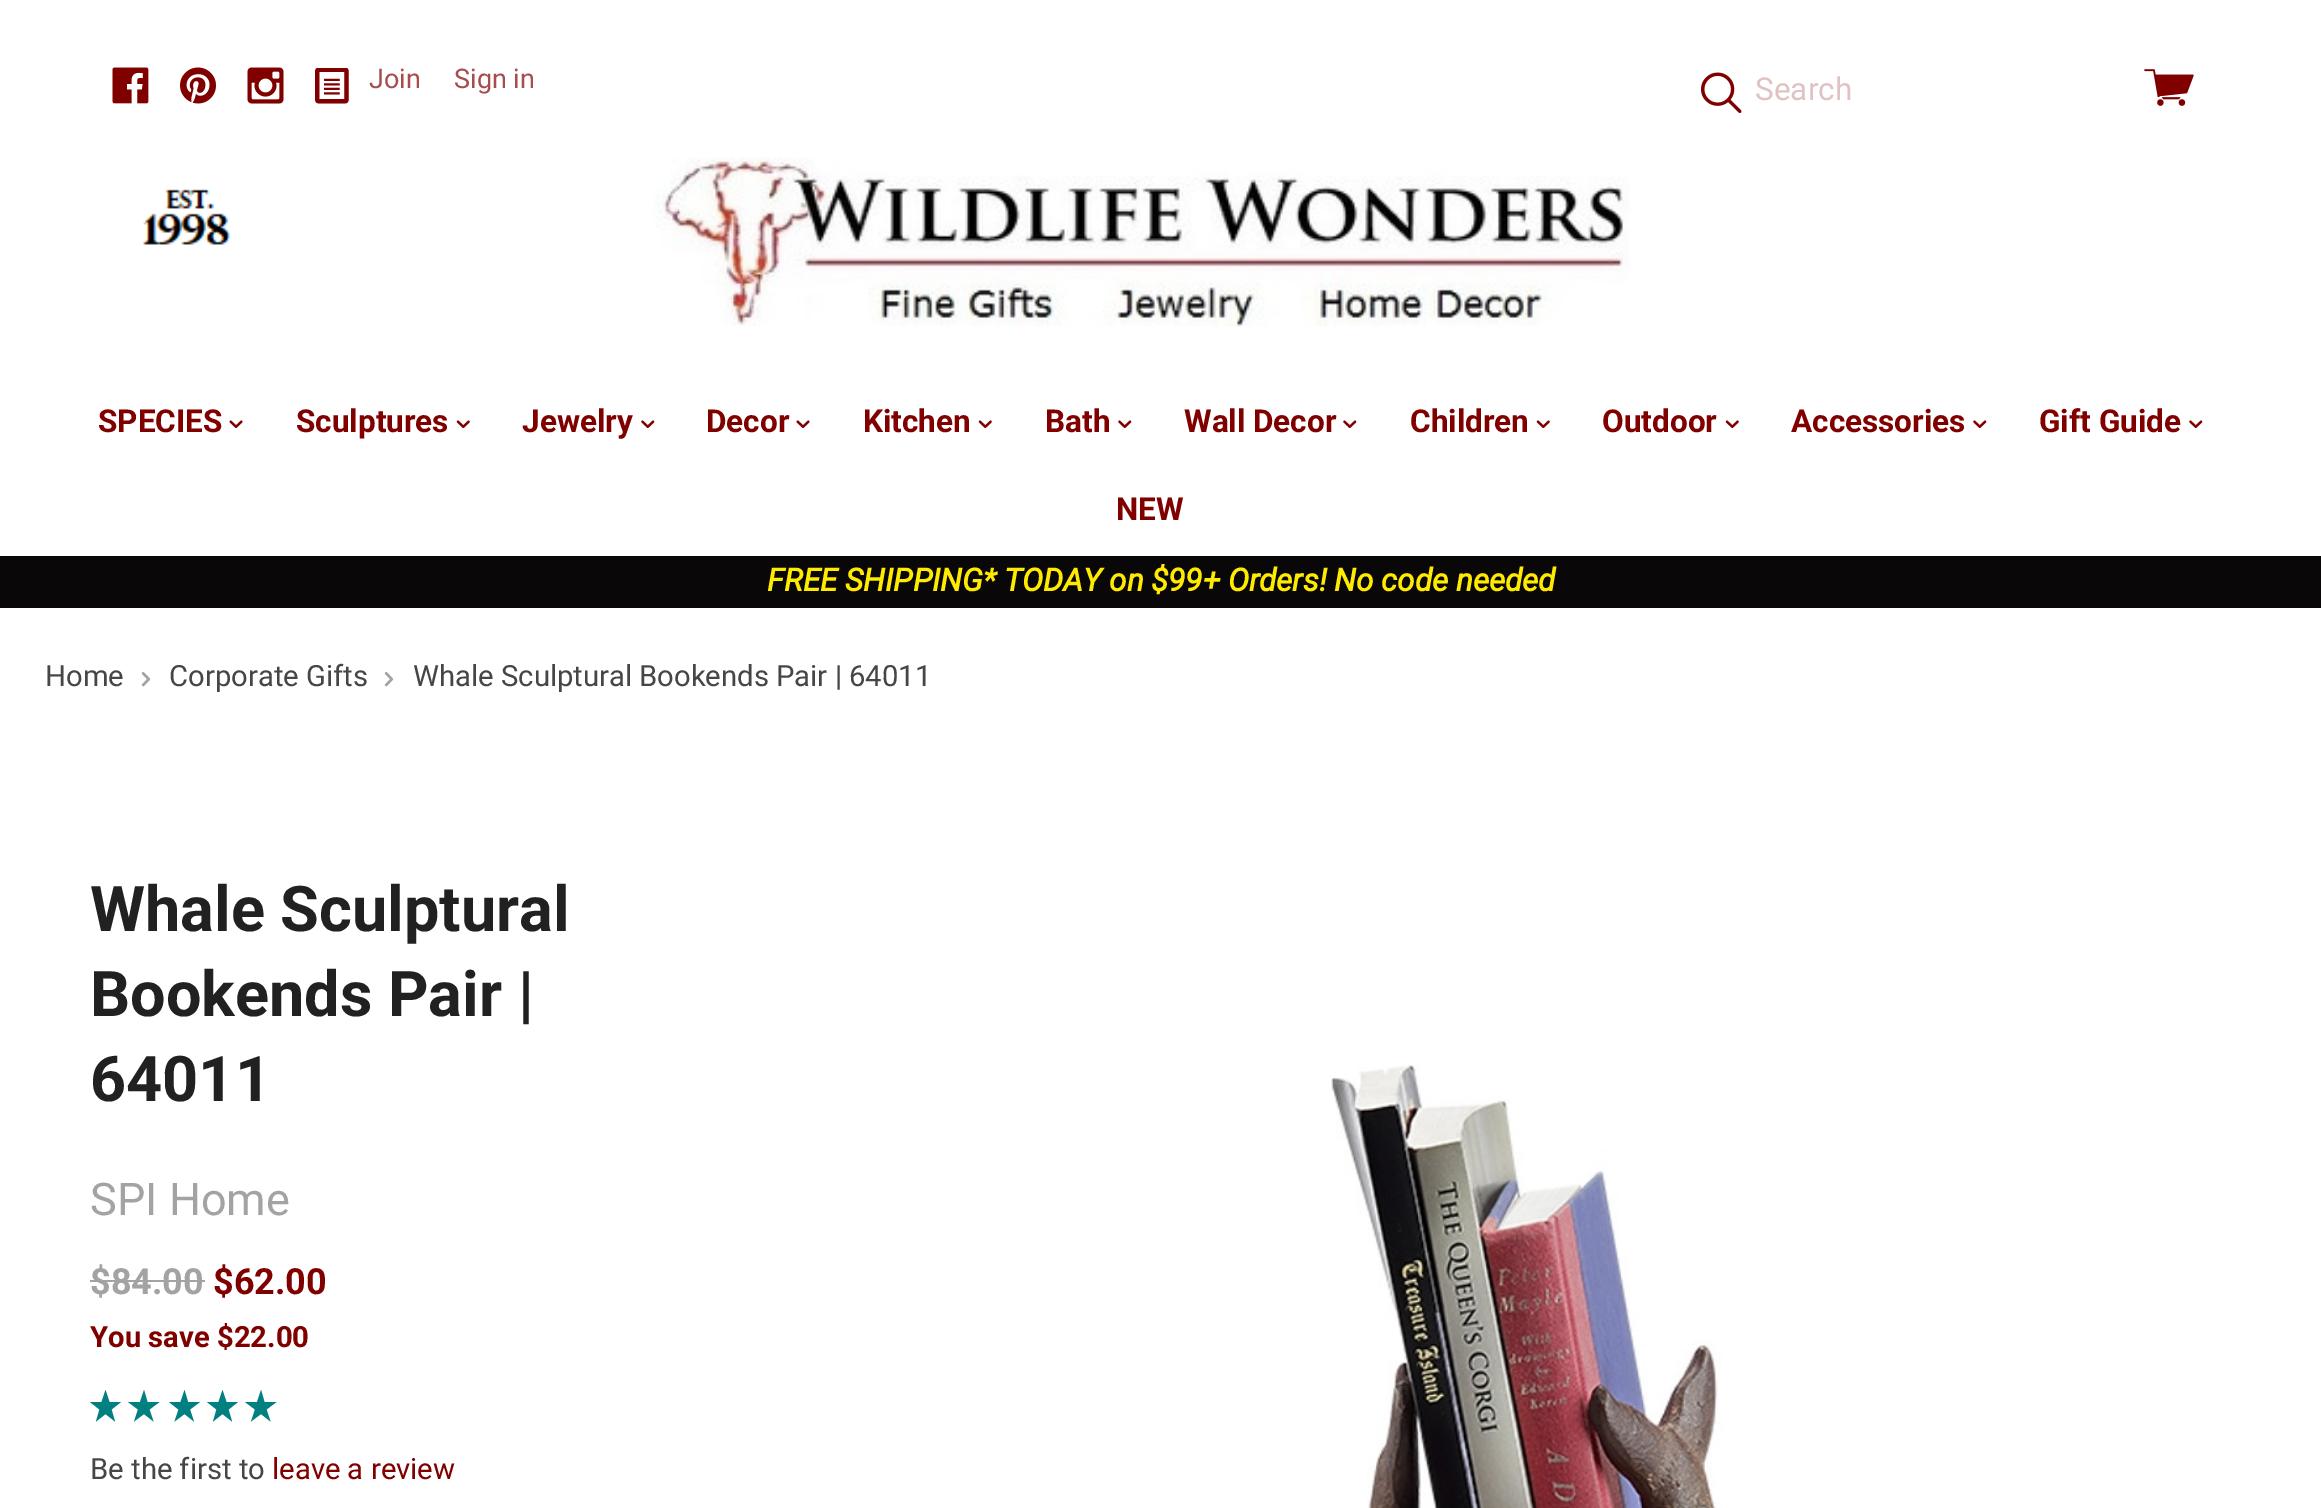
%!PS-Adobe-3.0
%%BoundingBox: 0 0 2321 1508
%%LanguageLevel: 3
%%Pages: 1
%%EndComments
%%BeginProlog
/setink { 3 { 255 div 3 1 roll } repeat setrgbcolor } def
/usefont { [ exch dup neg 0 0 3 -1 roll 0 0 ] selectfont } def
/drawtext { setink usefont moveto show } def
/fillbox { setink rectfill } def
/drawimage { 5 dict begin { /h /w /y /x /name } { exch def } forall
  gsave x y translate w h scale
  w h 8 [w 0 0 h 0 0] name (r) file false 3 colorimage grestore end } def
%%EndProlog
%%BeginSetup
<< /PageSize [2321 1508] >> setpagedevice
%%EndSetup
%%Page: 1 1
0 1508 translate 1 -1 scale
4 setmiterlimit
0 0 2321 1508 255 255 255 fillbox
(assets/img1.rgb) 112 67 37 37 drawimage
(assets/img2.rgb) 180 67 36 37 drawimage
(assets/img3.rgb) 247 67 37 37 drawimage
(assets/img4.rgb) 315 68 34 36 drawimage
(assets/img5.rgb) 2144 69 50 37 drawimage
(assets/img6.rgb) 143 189 87 56 drawimage
(assets/img7.rgb) 653 157 977 170 drawimage
(Join) 369 88 /Roboto-Regular 27 166 77 77 drawtext
(Sign in) 454 88 /Roboto-Regular 27 166 77 77 drawtext
(SPECIES) 98 432 /Roboto-Bold 31.5 128 0 0 drawtext
(assets/img8.rgb) 229 420 14 8 drawimage
(Sculptures) 296 432 /Roboto-Bold 31.5 128 0 0 drawtext
(assets/img9.rgb) 456 420 14 8 drawimage
(Jewelry) 522 432 /Roboto-Bold 31.5 128 0 0 drawtext
(assets/img10.rgb) 641 420 14 8 drawimage
(Decor) 706 432 /Roboto-Bold 31.5 128 0 0 drawtext
(assets/img8.rgb) 796 420 14 8 drawimage
(Kitchen) 863 432 /Roboto-Bold 31.5 128 0 0 drawtext
(assets/img9.rgb) 978 420 14 8 drawimage
(Bath) 1045 432 /Roboto-Bold 31.5 128 0 0 drawtext
(assets/img10.rgb) 1118 420 14 8 drawimage
(Wall Decor) 1184 432 /Roboto-Bold 31.5 128 0 0 drawtext
(assets/img10.rgb) 1343 420 14 8 drawimage
(Children) 1410 432 /Roboto-Bold 31.5 128 0 0 drawtext
(assets/img9.rgb) 1536 420 14 8 drawimage
(Outdoor) 1602 432 /Roboto-Bold 31.5 128 0 0 drawtext
(assets/img9.rgb) 1725 420 14 8 drawimage
(Accessories) 1791 432 /Roboto-Bold 31.5 128 0 0 drawtext
(assets/img10.rgb) 1973 420 14 8 drawimage
(Gift Guide) 2039 432 /Roboto-Bold 31.5 128 0 0 drawtext
(assets/img10.rgb) 2189 420 14 8 drawimage
(NEW) 1116 520 /Roboto-Bold 31.5 128 0 0 drawtext
(assets/img11.rgb) 1701 72 41 41 drawimage
(Search) 1755 100 /Roboto-Regular 31.5 224 194 194 drawtext
0 556 2321 52 10 7 9 fillbox
(FREE SHIPPING* TODAY on $99+ Orders! No code needed) 767 591 /Roboto-BoldItalic 31.5 255 235 0 drawtext
(Home) 45 686 /Roboto-Regular 29.25 70 70 70 drawtext
(assets/img12.rgb) 141 672 10 15 drawimage
(Corporate Gifts) 169 686 /Roboto-Regular 29.25 70 70 70 drawtext
(assets/img12.rgb) 384 672 10 15 drawimage
(Whale Sculptural Bookends Pair | 64011) 413 686 /Roboto-Regular 29.25 70 70 70 drawtext
(Whale Sculptural) 90 931 /Roboto-Bold 63 33 33 33 drawtext
(Bookends Pair |) 90 1016 /Roboto-Bold 63 33 33 33 drawtext
(64011) 90 1101 /Roboto-Bold 63 33 33 33 drawtext
(SPI Home) 90 1215 /Roboto-Regular 45 163 163 163 drawtext
($84.00) 90 1294 /Roboto-Bold 36 163 163 163 drawtext
90 1280 115 2 163 163 163 fillbox
($62.00) 213 1294 /Roboto-Bold 36 128 0 0 drawtext
(You save $22.00) 90 1347 /Roboto-Bold 29.25 128 0 0 drawtext
0 128 128 setink
111.5 1409.5 moveto 115 1421.5 lineto 105.5 1414 lineto 96 1421.5 lineto 99.5 1409.5 lineto 90 1402 lineto 101.5 1402 lineto 105.5 1390 lineto 109.5 1402 lineto 121 1402 lineto closepath fill
149.5 1409.5 moveto 153.5 1421.5 lineto 144 1414 lineto 134 1421.5 lineto 138 1409.5 lineto 128 1402 lineto 140 1402 lineto 144 1390 lineto 147.5 1402 lineto 159.5 1402 lineto closepath fill
190 1409.5 moveto 194 1421.5 lineto 184.5 1414 lineto 174.5 1421.5 lineto 178.5 1409.5 lineto 169 1402 lineto 180.5 1402 lineto 184.5 1390 lineto 188 1402 lineto 200 1402 lineto closepath fill
228.5 1409.5 moveto 232 1421.5 lineto 222.5 1414 lineto 213 1421.5 lineto 216.5 1409.5 lineto 207 1402 lineto 218.5 1402 lineto 222.5 1390 lineto 226.5 1402 lineto 238 1402 lineto closepath fill
266.5 1409.5 moveto 270.5 1421.5 lineto 261 1414 lineto 251 1421.5 lineto 255 1409.5 lineto 245 1402 lineto 257 1402 lineto 261 1390 lineto 264.5 1402 lineto 276.5 1402 lineto closepath fill
(Be the first to) 90 1479 /Roboto-Regular 29.25 70 70 70 drawtext
(leave a review) 272 1479 /Roboto-Regular 29.25 128 0 0 drawtext
(assets/img13.rgb) 1331 1065 392 443 drawimage
showpage
%%EOF
